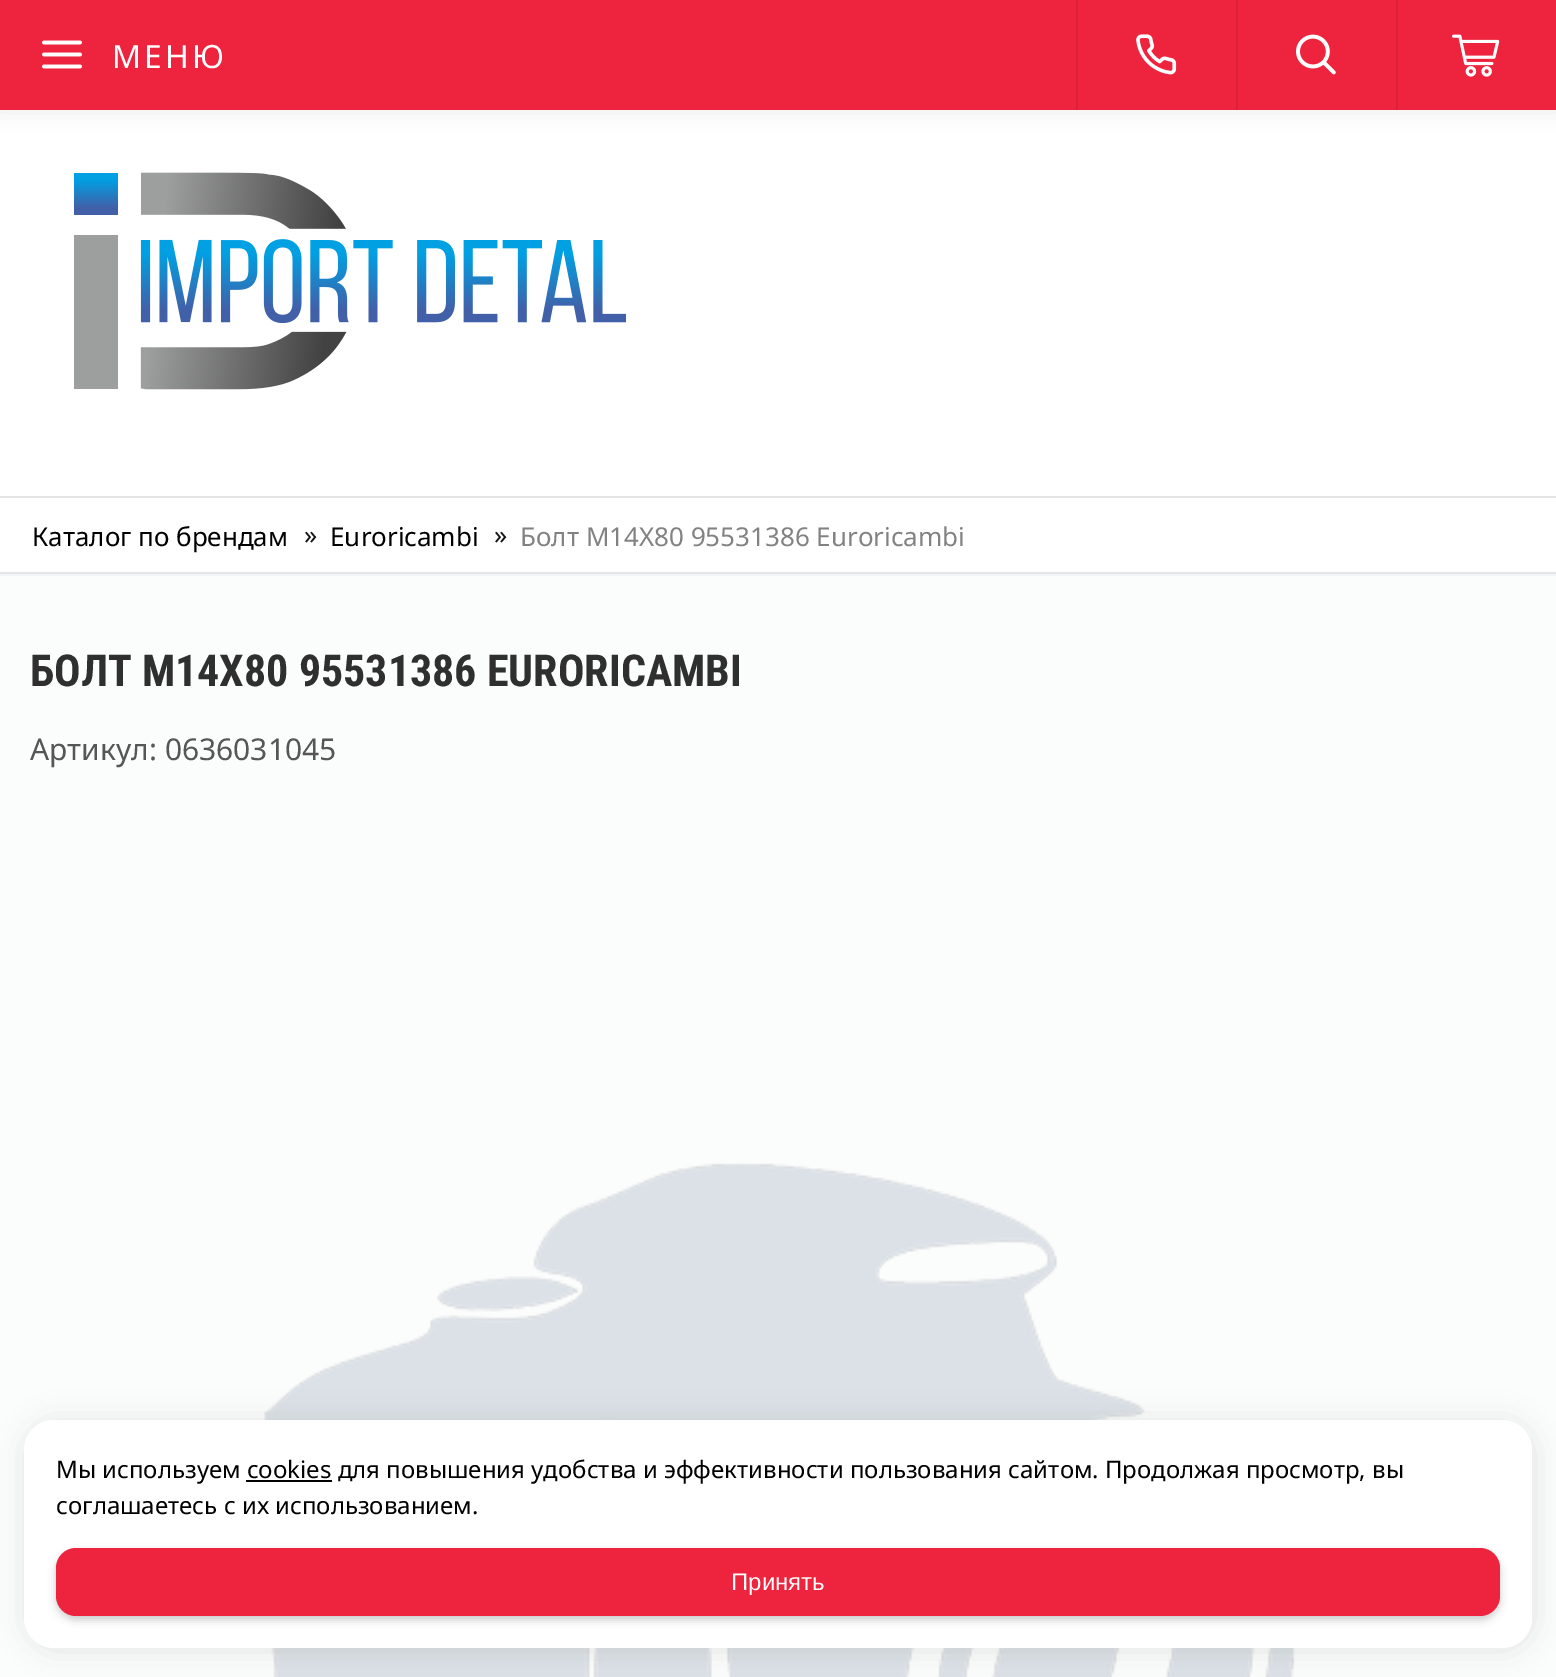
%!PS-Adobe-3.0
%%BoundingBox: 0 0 1556 1677
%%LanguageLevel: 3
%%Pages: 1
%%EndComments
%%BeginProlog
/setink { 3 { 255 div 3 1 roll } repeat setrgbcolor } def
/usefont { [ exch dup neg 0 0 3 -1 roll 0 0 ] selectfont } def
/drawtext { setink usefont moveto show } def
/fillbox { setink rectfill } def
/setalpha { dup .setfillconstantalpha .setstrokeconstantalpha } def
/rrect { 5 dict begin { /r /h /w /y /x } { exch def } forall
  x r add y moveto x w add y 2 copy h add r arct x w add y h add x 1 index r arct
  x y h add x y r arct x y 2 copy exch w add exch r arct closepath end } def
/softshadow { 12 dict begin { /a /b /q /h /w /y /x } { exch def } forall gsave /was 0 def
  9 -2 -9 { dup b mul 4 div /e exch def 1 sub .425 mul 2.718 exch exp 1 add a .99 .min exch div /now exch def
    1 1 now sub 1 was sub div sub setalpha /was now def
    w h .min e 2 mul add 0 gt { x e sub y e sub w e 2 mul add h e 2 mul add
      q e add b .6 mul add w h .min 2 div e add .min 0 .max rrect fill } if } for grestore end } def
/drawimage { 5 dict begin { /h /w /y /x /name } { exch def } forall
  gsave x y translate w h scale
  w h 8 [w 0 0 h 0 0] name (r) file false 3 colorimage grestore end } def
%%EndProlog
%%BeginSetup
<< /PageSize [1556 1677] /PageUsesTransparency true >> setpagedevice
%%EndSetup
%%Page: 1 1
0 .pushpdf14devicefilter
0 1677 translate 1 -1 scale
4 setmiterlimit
0 0 1556 1677 255 255 255 fillbox
16 15 28 setink
-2 -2 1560 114 0 10 0.07 softshadow
0 0 1556 110 238 35 61 fillbox
(assets/img1.rgb) 42 40 40 29 drawimage
/NotoSans-Regular 32 usefont
255 255 255 setink
112 68 moveto 3 0 (МЕНЮ) ashow
1076 0 2 110 218 33 57 fillbox
(assets/img2.rgb) 1136 34 41 41 drawimage
1236 0 2 110 218 33 57 fillbox
(assets/img3.rgb) 1296 34 40 41 drawimage
1396 0 2 110 218 33 57 fillbox
(assets/img4.rgb) 1452 34 48 43 drawimage
(assets/img5.rgb) 74 172 552 218 drawimage
0 496 1556 2 229 229 231 fillbox
0 572 1556 2 229 229 231 fillbox
(Каталог по брендам) 32 546 /NotoSans-Regular 26 0 0 0 drawtext
(») 304 544 /NotoSans-Regular 26 17 17 17 drawtext
(Euroricambi) 330 546 /NotoSans-Regular 26 0 0 0 drawtext
(») 494 544 /NotoSans-Regular 26 17 17 17 drawtext
(Болт M14X80 95531386 Euroricambi) 520 546 /NotoSans-Regular 26 130 130 130 drawtext
0 576 1556 1101 251 252 252 fillbox
0 574 1556 2 242 245 247 fillbox
(БОЛТ M14X80 95531386 EURORICAMBI) 30 686 /RobotoCondensed-Bold 44 47 47 47 drawtext
(Артикул: 0636031045) 30 760 /NotoSans-Regular 30 86 85 87 drawtext
(assets/img6.rgb) 264 1163 1031 514 drawimage
0 0 0 setink
26 1422 1508 228 30 15 0.1 softshadow
255 255 255 setink
24 1420 1508 228 30 rrect fill
(Мы используем cookies для повышения удобства и эффективности пользования сайтом. Продолжая просмотр, вы) 56 1478 /NotoSans-Regular 24 0 0 0 drawtext
246 1480 86 2 0 0 0 fillbox
(соглашаетесь с их использованием.) 56 1514 /NotoSans-Regular 24 0 0 0 drawtext
56 1552 1444 68 20 4 0.2 softshadow
238 35 61 setink
56 1548 1444 68 20 rrect fill
(Принять) 731 1590 /LiberationSans-Regular 24 255 255 255 drawtext
.poppdf14devicefilter showpage
%%EOF
